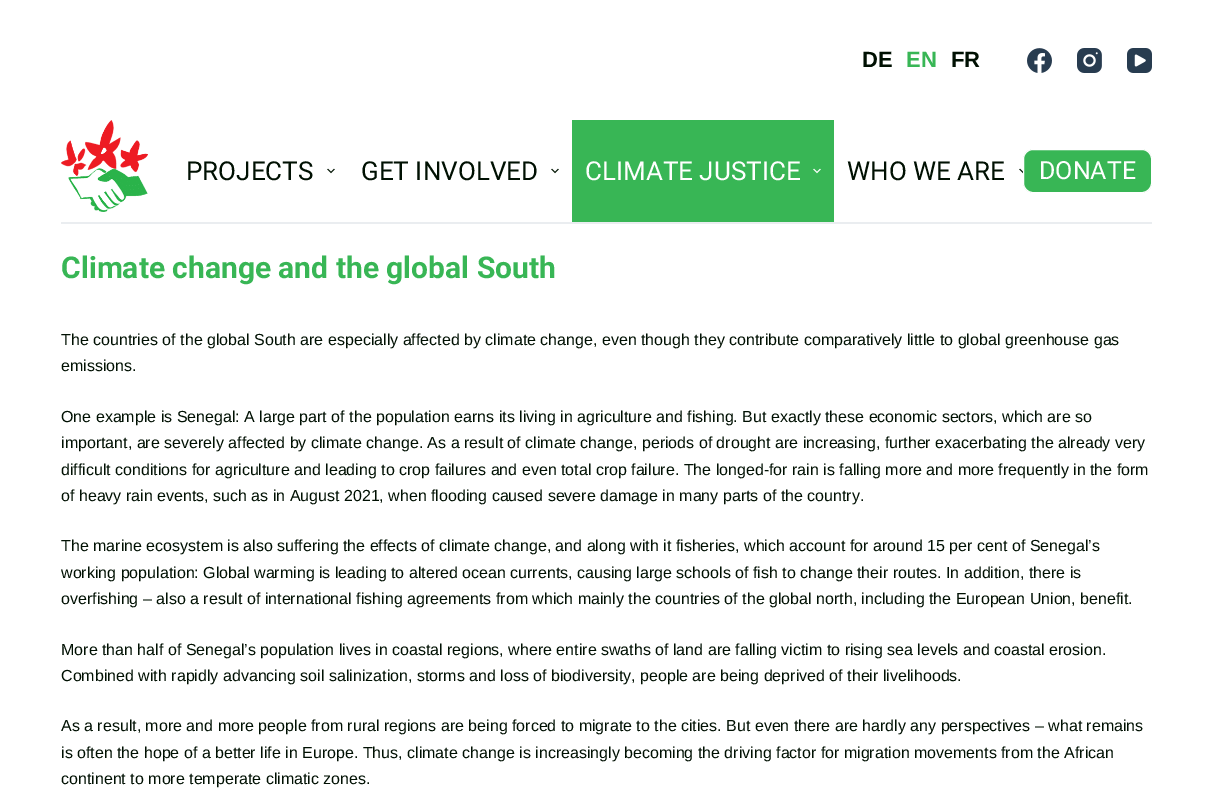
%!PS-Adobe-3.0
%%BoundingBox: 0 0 1213 788
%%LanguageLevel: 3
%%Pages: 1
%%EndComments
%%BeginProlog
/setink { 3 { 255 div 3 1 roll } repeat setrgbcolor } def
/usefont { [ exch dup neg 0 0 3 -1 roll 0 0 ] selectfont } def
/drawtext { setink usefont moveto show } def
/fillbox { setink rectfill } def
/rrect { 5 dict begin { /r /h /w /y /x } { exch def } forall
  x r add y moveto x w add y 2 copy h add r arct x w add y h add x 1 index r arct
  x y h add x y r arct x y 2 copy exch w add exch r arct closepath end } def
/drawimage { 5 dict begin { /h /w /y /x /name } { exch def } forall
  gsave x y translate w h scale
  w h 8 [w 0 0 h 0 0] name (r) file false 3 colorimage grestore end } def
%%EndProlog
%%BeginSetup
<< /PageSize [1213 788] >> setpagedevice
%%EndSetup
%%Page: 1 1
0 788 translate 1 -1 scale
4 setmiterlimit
0 0 1213 788 255 255 255 fillbox
(DE) 862 67 /LiberationSans-Bold 22 0 16 2 drawtext
(EN) 906 67 /LiberationSans-Bold 22 56 182 85 drawtext
(FR) 951 67 /LiberationSans-Bold 22 0 16 2 drawtext
(assets/img1.rgb) 1027 48 25 25 drawimage
(assets/img2.rgb) 1077 48 25 25 drawimage
(assets/img3.rgb) 1127 48 25 25 drawimage
61 222 1091 2 234 237 240 fillbox
(assets/img4.rgb) 61 120 87 92 drawimage
(PROJECTS) 186 180 /Roboto-Regular 26 0 16 2 drawtext
(assets/img5.rgb) 327 168 8 6 drawimage
(GET INVOLVED) 361 180 /Roboto-Regular 26 0 16 2 drawtext
(assets/img5.rgb) 551 168 8 6 drawimage
572 120 262 102 56 182 85 fillbox
(CLIMATE JUSTICE) 585 180 /Roboto-Regular 26 255 255 255 drawtext
(assets/img6.rgb) 813 168 8 6 drawimage
(WHO WE ARE) 847 180 /Roboto-Regular 26 0 16 2 drawtext
(assets/img7.rgb) 1019 168 4 6 drawimage
56 182 85 setink
1023.5 149.5 128 43 9.5 rrect gsave fill grestore
255 255 255 setink
stroke
(DONATE) 1039 179 /Roboto-Regular 25 255 255 255 drawtext
(Climate change and the global South) 61 278 /Roboto-Bold 30 56 182 85 drawtext
(The countries of the global South are especially affected by climate change, even though they contribute comparatively little to global greenhouse gas) 61 345 /LiberationSans-Regular 16 0 16 2 drawtext
(emissions.) 61 371 /LiberationSans-Regular 16 0 16 2 drawtext
(One example is Senegal: A large part of the population earns its living in agriculture and fishing. But exactly these economic sectors, which are so) 61 422 /LiberationSans-Regular 16 0 16 2 drawtext
(important, are severely affected by climate change. As a result of climate change, periods of drought are increasing, further exacerbating the already very) 61 448 /LiberationSans-Regular 16 0 16 2 drawtext
(difficult conditions for agriculture and leading to crop failures and even total crop failure. The longed-for rain is falling more and more frequently in the form) 61 475 /LiberationSans-Regular 16 0 16 2 drawtext
(of heavy rain events, such as in August 2021, when flooding caused severe damage in many parts of the country.) 61 501 /LiberationSans-Regular 16 0 16 2 drawtext
(The marine ecosystem is also suffering the effects of climate change, and along with it fisheries, which account for around 15 per cent of Senegal’s) 61 551 /LiberationSans-Regular 16 0 16 2 drawtext
(working population: Global warming is leading to altered ocean currents, causing large schools of fish to change their routes. In addition, there is) 61 578 /LiberationSans-Regular 16 0 16 2 drawtext
(overfishing – also a result of international fishing agreements from which mainly the countries of the global north, including the European Union, benefit.) 61 604 /LiberationSans-Regular 16 0 16 2 drawtext
(More than half of Senegal’s population lives in coastal regions, where entire swaths of land are falling victim to rising sea levels and coastal erosion.) 61 655 /LiberationSans-Regular 16 0 16 2 drawtext
(Combined with rapidly advancing soil salinization, storms and loss of biodiversity, people are being deprived of their livelihoods.) 61 681 /LiberationSans-Regular 16 0 16 2 drawtext
(As a result, more and more people from rural regions are being forced to migrate to the cities. But even there are hardly any perspectives – what remains) 61 731 /LiberationSans-Regular 16 0 16 2 drawtext
(is often the hope of a better life in Europe. Thus, climate change is increasingly becoming the driving factor for migration movements from the African) 61 758 /LiberationSans-Regular 16 0 16 2 drawtext
(continent to more temperate climatic zones.) 61 784 /LiberationSans-Regular 16 0 16 2 drawtext
showpage
%%EOF
